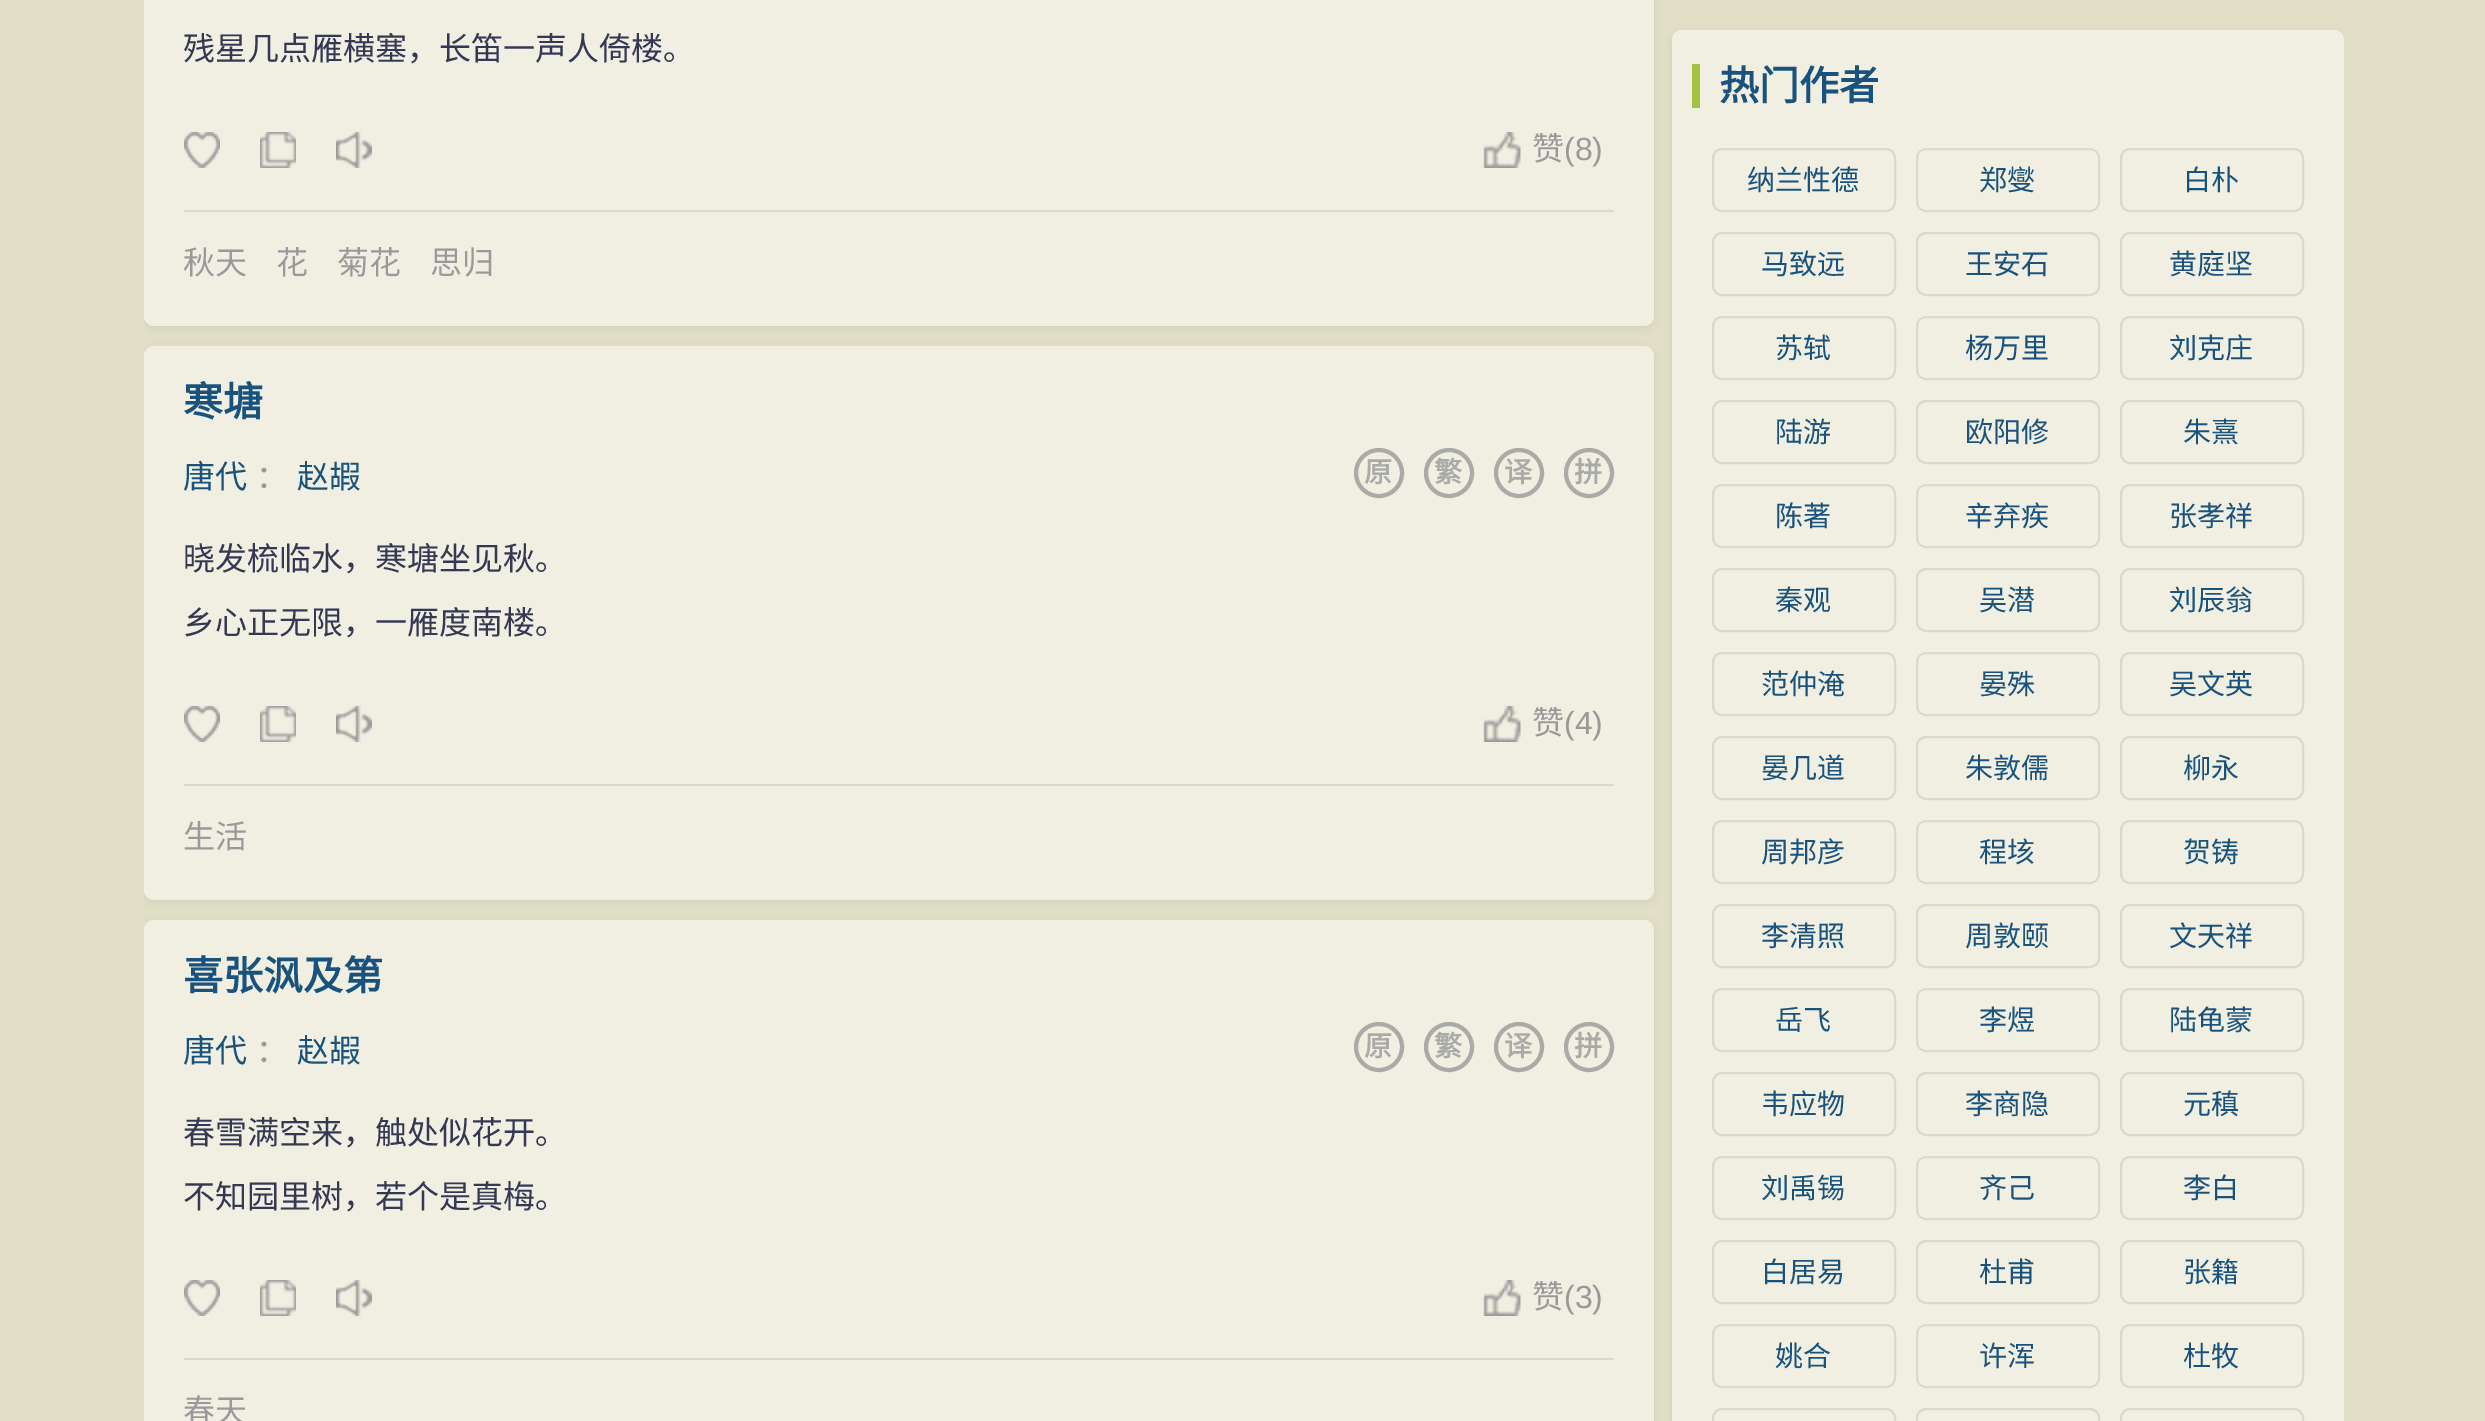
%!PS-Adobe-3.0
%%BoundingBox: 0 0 2485 1421
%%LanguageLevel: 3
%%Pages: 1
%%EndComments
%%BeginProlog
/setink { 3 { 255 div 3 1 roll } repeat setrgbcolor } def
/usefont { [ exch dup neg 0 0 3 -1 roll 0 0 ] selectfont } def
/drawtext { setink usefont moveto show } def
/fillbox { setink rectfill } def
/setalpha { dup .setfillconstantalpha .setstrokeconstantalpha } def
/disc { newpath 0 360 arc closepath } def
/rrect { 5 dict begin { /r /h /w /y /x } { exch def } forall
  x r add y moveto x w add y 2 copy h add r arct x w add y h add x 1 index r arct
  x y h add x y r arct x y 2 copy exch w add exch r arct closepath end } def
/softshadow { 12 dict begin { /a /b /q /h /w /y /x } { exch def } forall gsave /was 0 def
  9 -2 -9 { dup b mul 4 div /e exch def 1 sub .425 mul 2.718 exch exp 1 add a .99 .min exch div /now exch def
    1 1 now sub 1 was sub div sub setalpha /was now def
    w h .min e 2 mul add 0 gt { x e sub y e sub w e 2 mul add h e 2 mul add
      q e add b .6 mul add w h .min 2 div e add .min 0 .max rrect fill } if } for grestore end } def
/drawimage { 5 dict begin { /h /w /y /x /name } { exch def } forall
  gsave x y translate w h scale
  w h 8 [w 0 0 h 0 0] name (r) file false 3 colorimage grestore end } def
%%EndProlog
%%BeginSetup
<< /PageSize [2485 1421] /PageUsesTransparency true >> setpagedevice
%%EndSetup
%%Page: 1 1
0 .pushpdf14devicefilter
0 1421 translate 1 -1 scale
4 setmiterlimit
0 0 2485 1421 225 224 199 fillbox
gsave
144 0 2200 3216 rectclip
0 0 0 setink
144 -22 1510 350 10 4 0.07 softshadow
grestore
240 239 226 setink
144 -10 1510 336 10 rrect fill
(残星几点雁横塞，长笛一声人倚楼。) 183 60 /NotoSansCJKSC-Regular 32 52 56 83 drawtext
(assets/img1.rgb) 184 132 36 36 drawimage
(assets/img2.rgb) 260 132 36 36 drawimage
(assets/img3.rgb) 336 132 36 36 drawimage
(assets/img4.rgb) 1483 132 38 36 drawimage
(赞) 1532 160 /NotoSansCJKSC-Regular 32 153 153 153 drawtext
(\(8\)) 1564 160 /LiberationSans-Regular 32 153 153 153 drawtext
184 210 1430 2 218 217 209 fillbox
(秋天) 183 274 /NotoSansCJKSC-Regular 32 153 153 153 drawtext
(花) 276 274 /NotoSansCJKSC-Regular 32 153 153 153 drawtext
(菊花) 337 274 /NotoSansCJKSC-Regular 32 153 153 153 drawtext
(思归) 430 274 /NotoSansCJKSC-Regular 32 153 153 153 drawtext
gsave
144 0 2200 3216 rectclip
0 0 0 setink
144 348 1510 554 10 4 0.07 softshadow
grestore
240 239 226 setink
144 346 1510 554 10 rrect fill
(寒塘) 183 416 /NotoSansCJKSC-Bold 40 25 83 125 drawtext
(唐代) 183 488 /NotoSansCJKSC-Regular 32 25 83 125 drawtext
(：) 256 488 /NotoSansCJKSC-Regular 32 153 153 153 drawtext
(赵嘏) 297 488 /NotoSansCJKSC-Regular 32 25 83 125 drawtext
170 170 167 setink
4 setlinewidth
1379 473 23 disc stroke
(原) 1364 482 /NotoSansCJKSC-Bold 28 170 170 167 drawtext
1449 473 23 disc stroke
(繁) 1434 482 /NotoSansCJKSC-Bold 28 170 170 167 drawtext
1519 473 23 disc stroke
(译) 1504 482 /NotoSansCJKSC-Bold 28 170 170 167 drawtext
1589 473 23 disc stroke
(拼) 1574 482 /NotoSansCJKSC-Bold 28 170 170 167 drawtext
(晓发梳临水，寒塘坐见秋。) 183 570 /NotoSansCJKSC-Regular 32 52 56 83 drawtext
(乡心正无限，一雁度南楼。) 183 634 /NotoSansCJKSC-Regular 32 52 56 83 drawtext
(assets/img1.rgb) 184 706 36 36 drawimage
(assets/img2.rgb) 260 706 36 36 drawimage
(assets/img3.rgb) 336 706 36 36 drawimage
(assets/img4.rgb) 1483 706 38 36 drawimage
(赞) 1532 734 /NotoSansCJKSC-Regular 32 153 153 153 drawtext
(\(4\)) 1564 734 /LiberationSans-Regular 32 153 153 153 drawtext
184 784 1430 2 218 217 209 fillbox
(生活) 183 848 /NotoSansCJKSC-Regular 32 153 153 153 drawtext
gsave
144 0 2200 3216 rectclip
0 0 0 setink
144 922 1510 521 10 4 0.07 softshadow
grestore
240 239 226 setink
144 920 1510 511 10 rrect fill
(喜张沨及第) 183 990 /NotoSansCJKSC-Bold 40 25 83 125 drawtext
(唐代) 183 1062 /NotoSansCJKSC-Regular 32 25 83 125 drawtext
(：) 256 1062 /NotoSansCJKSC-Regular 32 153 153 153 drawtext
(赵嘏) 297 1062 /NotoSansCJKSC-Regular 32 25 83 125 drawtext
170 170 167 setink
1379 1047 23 disc stroke
(原) 1364 1056 /NotoSansCJKSC-Bold 28 170 170 167 drawtext
1449 1047 23 disc stroke
(繁) 1434 1056 /NotoSansCJKSC-Bold 28 170 170 167 drawtext
1519 1047 23 disc stroke
(译) 1504 1056 /NotoSansCJKSC-Bold 28 170 170 167 drawtext
1589 1047 23 disc stroke
(拼) 1574 1056 /NotoSansCJKSC-Bold 28 170 170 167 drawtext
(春雪满空来，触处似花开。) 183 1144 /NotoSansCJKSC-Regular 32 52 56 83 drawtext
(不知园里树，若个是真梅。) 183 1208 /NotoSansCJKSC-Regular 32 52 56 83 drawtext
(assets/img1.rgb) 184 1280 36 36 drawimage
(assets/img2.rgb) 260 1280 36 36 drawimage
(assets/img3.rgb) 336 1280 36 36 drawimage
(assets/img4.rgb) 1483 1280 38 36 drawimage
(赞) 1532 1308 /NotoSansCJKSC-Regular 32 153 153 153 drawtext
(\(3\)) 1564 1308 /LiberationSans-Regular 32 153 153 153 drawtext
184 1358 1430 2 218 217 209 fillbox
(春天) 183 1422 /NotoSansCJKSC-Regular 32 153 153 153 drawtext
gsave
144 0 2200 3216 rectclip
0 0 0 setink
1672 32 672 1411 10 4 0.07 softshadow
grestore
240 239 226 setink
1672 30 672 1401 10 rrect fill
1692 64 8 44 162 194 65 fillbox
(热门作者) 1719 100 /NotoSansCJKSC-Bold 40 25 83 125 drawtext
218 217 209 setink
2 setlinewidth
1713 149 182 62 9 rrect stroke
(纳兰性德) 1747 190 /NotoSansCJKSC-Regular 28 25 83 125 drawtext
218 217 209 setink
1917 149 182 62 9 rrect stroke
(郑燮) 1979 190 /NotoSansCJKSC-Regular 28 25 83 125 drawtext
218 217 209 setink
2121 149 182 62 9 rrect stroke
(白朴) 2183 190 /NotoSansCJKSC-Regular 28 25 83 125 drawtext
218 217 209 setink
1713 233 182 62 9 rrect stroke
(马致远) 1761 274 /NotoSansCJKSC-Regular 28 25 83 125 drawtext
218 217 209 setink
1917 233 182 62 9 rrect stroke
(王安石) 1965 274 /NotoSansCJKSC-Regular 28 25 83 125 drawtext
218 217 209 setink
2121 233 182 62 9 rrect stroke
(黄庭坚) 2169 274 /NotoSansCJKSC-Regular 28 25 83 125 drawtext
218 217 209 setink
1713 317 182 62 9 rrect stroke
(苏轼) 1775 358 /NotoSansCJKSC-Regular 28 25 83 125 drawtext
218 217 209 setink
1917 317 182 62 9 rrect stroke
(杨万里) 1965 358 /NotoSansCJKSC-Regular 28 25 83 125 drawtext
218 217 209 setink
2121 317 182 62 9 rrect stroke
(刘克庄) 2169 358 /NotoSansCJKSC-Regular 28 25 83 125 drawtext
218 217 209 setink
1713 401 182 62 9 rrect stroke
(陆游) 1775 442 /NotoSansCJKSC-Regular 28 25 83 125 drawtext
218 217 209 setink
1917 401 182 62 9 rrect stroke
(欧阳修) 1965 442 /NotoSansCJKSC-Regular 28 25 83 125 drawtext
218 217 209 setink
2121 401 182 62 9 rrect stroke
(朱熹) 2183 442 /NotoSansCJKSC-Regular 28 25 83 125 drawtext
218 217 209 setink
1713 485 182 62 9 rrect stroke
(陈著) 1775 526 /NotoSansCJKSC-Regular 28 25 83 125 drawtext
218 217 209 setink
1917 485 182 62 9 rrect stroke
(辛弃疾) 1965 526 /NotoSansCJKSC-Regular 28 25 83 125 drawtext
218 217 209 setink
2121 485 182 62 9 rrect stroke
(张孝祥) 2169 526 /NotoSansCJKSC-Regular 28 25 83 125 drawtext
218 217 209 setink
1713 569 182 62 9 rrect stroke
(秦观) 1775 610 /NotoSansCJKSC-Regular 28 25 83 125 drawtext
218 217 209 setink
1917 569 182 62 9 rrect stroke
(吴潜) 1979 610 /NotoSansCJKSC-Regular 28 25 83 125 drawtext
218 217 209 setink
2121 569 182 62 9 rrect stroke
(刘辰翁) 2169 610 /NotoSansCJKSC-Regular 28 25 83 125 drawtext
218 217 209 setink
1713 653 182 62 9 rrect stroke
(范仲淹) 1761 694 /NotoSansCJKSC-Regular 28 25 83 125 drawtext
218 217 209 setink
1917 653 182 62 9 rrect stroke
(晏殊) 1979 694 /NotoSansCJKSC-Regular 28 25 83 125 drawtext
218 217 209 setink
2121 653 182 62 9 rrect stroke
(吴文英) 2169 694 /NotoSansCJKSC-Regular 28 25 83 125 drawtext
218 217 209 setink
1713 737 182 62 9 rrect stroke
(晏几道) 1761 778 /NotoSansCJKSC-Regular 28 25 83 125 drawtext
218 217 209 setink
1917 737 182 62 9 rrect stroke
(朱敦儒) 1965 778 /NotoSansCJKSC-Regular 28 25 83 125 drawtext
218 217 209 setink
2121 737 182 62 9 rrect stroke
(柳永) 2183 778 /NotoSansCJKSC-Regular 28 25 83 125 drawtext
218 217 209 setink
1713 821 182 62 9 rrect stroke
(周邦彦) 1761 862 /NotoSansCJKSC-Regular 28 25 83 125 drawtext
218 217 209 setink
1917 821 182 62 9 rrect stroke
(程垓) 1979 862 /NotoSansCJKSC-Regular 28 25 83 125 drawtext
218 217 209 setink
2121 821 182 62 9 rrect stroke
(贺铸) 2183 862 /NotoSansCJKSC-Regular 28 25 83 125 drawtext
218 217 209 setink
1713 905 182 62 9 rrect stroke
(李清照) 1761 946 /NotoSansCJKSC-Regular 28 25 83 125 drawtext
218 217 209 setink
1917 905 182 62 9 rrect stroke
(周敦颐) 1965 946 /NotoSansCJKSC-Regular 28 25 83 125 drawtext
218 217 209 setink
2121 905 182 62 9 rrect stroke
(文天祥) 2169 946 /NotoSansCJKSC-Regular 28 25 83 125 drawtext
218 217 209 setink
1713 989 182 62 9 rrect stroke
(岳飞) 1775 1030 /NotoSansCJKSC-Regular 28 25 83 125 drawtext
218 217 209 setink
1917 989 182 62 9 rrect stroke
(李煜) 1979 1030 /NotoSansCJKSC-Regular 28 25 83 125 drawtext
218 217 209 setink
2121 989 182 62 9 rrect stroke
(陆龟蒙) 2169 1030 /NotoSansCJKSC-Regular 28 25 83 125 drawtext
218 217 209 setink
1713 1073 182 62 9 rrect stroke
(韦应物) 1761 1114 /NotoSansCJKSC-Regular 28 25 83 125 drawtext
218 217 209 setink
1917 1073 182 62 9 rrect stroke
(李商隐) 1965 1114 /NotoSansCJKSC-Regular 28 25 83 125 drawtext
218 217 209 setink
2121 1073 182 62 9 rrect stroke
(元稹) 2183 1114 /NotoSansCJKSC-Regular 28 25 83 125 drawtext
218 217 209 setink
1713 1157 182 62 9 rrect stroke
(刘禹锡) 1761 1198 /NotoSansCJKSC-Regular 28 25 83 125 drawtext
218 217 209 setink
1917 1157 182 62 9 rrect stroke
(齐己) 1979 1198 /NotoSansCJKSC-Regular 28 25 83 125 drawtext
218 217 209 setink
2121 1157 182 62 9 rrect stroke
(李白) 2183 1198 /NotoSansCJKSC-Regular 28 25 83 125 drawtext
218 217 209 setink
1713 1241 182 62 9 rrect stroke
(白居易) 1761 1282 /NotoSansCJKSC-Regular 28 25 83 125 drawtext
218 217 209 setink
1917 1241 182 62 9 rrect stroke
(杜甫) 1979 1282 /NotoSansCJKSC-Regular 28 25 83 125 drawtext
218 217 209 setink
2121 1241 182 62 9 rrect stroke
(张籍) 2183 1282 /NotoSansCJKSC-Regular 28 25 83 125 drawtext
218 217 209 setink
1713 1325 182 62 9 rrect stroke
(姚合) 1775 1366 /NotoSansCJKSC-Regular 28 25 83 125 drawtext
218 217 209 setink
1917 1325 182 62 9 rrect stroke
(许浑) 1979 1366 /NotoSansCJKSC-Regular 28 25 83 125 drawtext
218 217 209 setink
2121 1325 182 62 9 rrect stroke
(杜牧) 2183 1366 /NotoSansCJKSC-Regular 28 25 83 125 drawtext
218 217 209 setink
1713 1409 182 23 9 rrect stroke
1917 1409 182 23 9 rrect stroke
2121 1409 182 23 9 rrect stroke
.poppdf14devicefilter showpage
%%EOF
